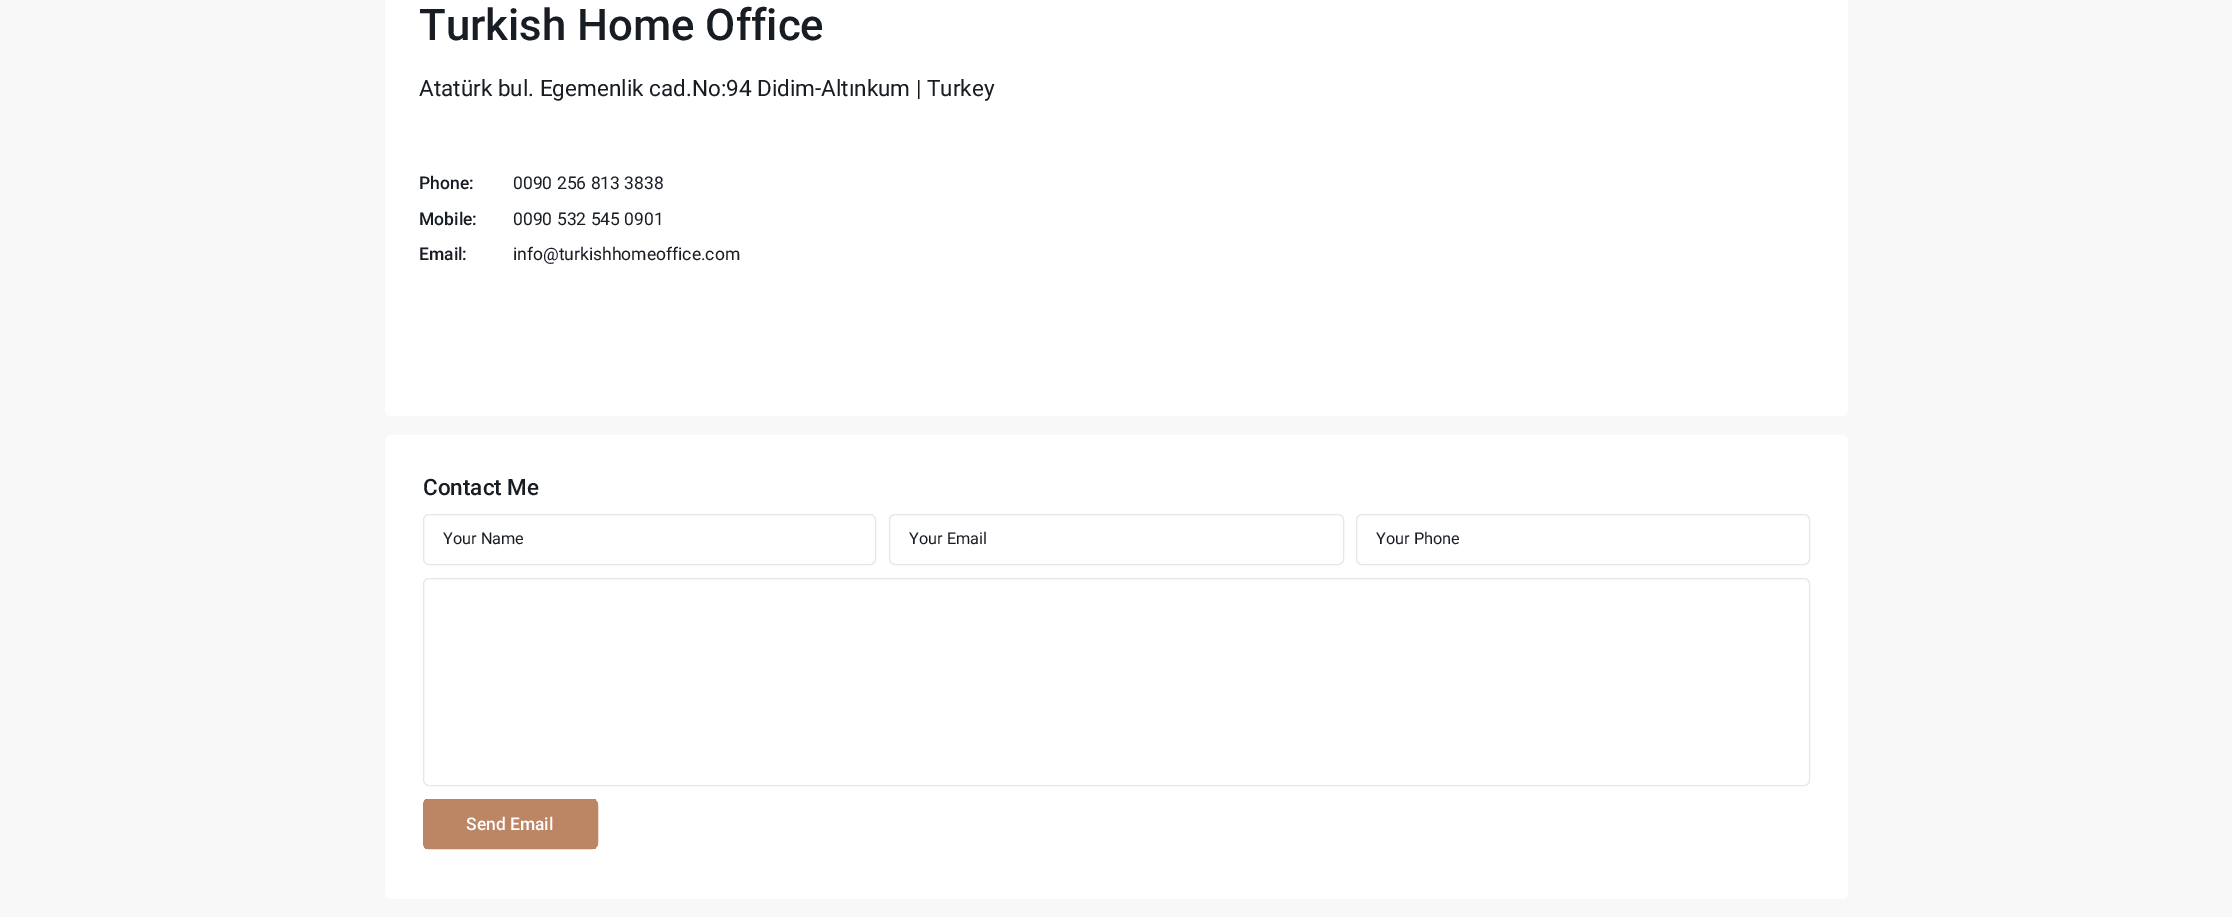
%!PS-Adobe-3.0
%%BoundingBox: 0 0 2232 917
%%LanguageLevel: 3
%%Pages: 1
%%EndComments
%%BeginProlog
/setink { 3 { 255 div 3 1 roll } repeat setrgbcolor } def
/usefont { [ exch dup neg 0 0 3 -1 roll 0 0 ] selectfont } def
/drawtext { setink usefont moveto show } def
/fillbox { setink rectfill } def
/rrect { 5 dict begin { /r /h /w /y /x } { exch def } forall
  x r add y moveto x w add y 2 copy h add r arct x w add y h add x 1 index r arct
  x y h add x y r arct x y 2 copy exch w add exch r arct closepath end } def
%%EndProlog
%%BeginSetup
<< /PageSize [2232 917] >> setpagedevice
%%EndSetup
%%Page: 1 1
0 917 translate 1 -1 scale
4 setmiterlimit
0 0 2232 917 248 248 248 fillbox
255 255 255 setink
385 -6 1463 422 6 rrect fill
(Turkish Home Office) 419 40 /Roboto-Medium 43.75 24 29 36 drawtext
(Atatürk bul. Egemenlik cad.No:94 Didim-Altınkum | Turkey) 419 96 /Roboto-Regular 22.5 24 29 36 drawtext
(Phone:) 419 189 /Roboto-Medium 17.5 24 29 36 drawtext
(0090 256 813 3838) 513 189 /Roboto-Regular 17.5 24 29 36 drawtext
(Mobile:) 419 225 /Roboto-Medium 17.5 24 29 36 drawtext
(0090 532 545 0901) 513 225 /Roboto-Regular 17.5 24 29 36 drawtext
(Email:) 419 260 /Roboto-Medium 17.5 24 29 36 drawtext
(info@turkishhomeoffice.com) 513 260 /Roboto-Regular 17.5 24 29 36 drawtext
255 255 255 setink
385 435 1463 464 6 rrect fill
(Contact Me) 423 495 /Roboto-Medium 22.5 24 29 36 drawtext
231 231 231 setink
423.5 514.5 452 50 5.5 rrect stroke
(Your Name) 443 544 /Roboto-Regular 16.25 24 29 36 drawtext
231 231 231 setink
889.5 514.5 454 50 5.5 rrect stroke
(Your Email) 909 544 /Roboto-Regular 16.25 24 29 36 drawtext
231 231 231 setink
1356.5 514.5 453 50 5.5 rrect stroke
(Your Phone) 1376 544 /Roboto-Regular 16.25 24 29 36 drawtext
231 231 231 setink
423.5 578.5 1386 207 5.5 rrect stroke
188 134 100 setink
423 799 175 50 6 rrect fill
gsave
423 799 175 50 6 rrect clip newpath
424 799 172 50 188 134 100 fillbox
grestore
423.5 799.5 174 49 5.5 rrect stroke
(Send Email) 466 830 /Roboto-Medium 17.5 255 255 255 drawtext
showpage
%%EOF
